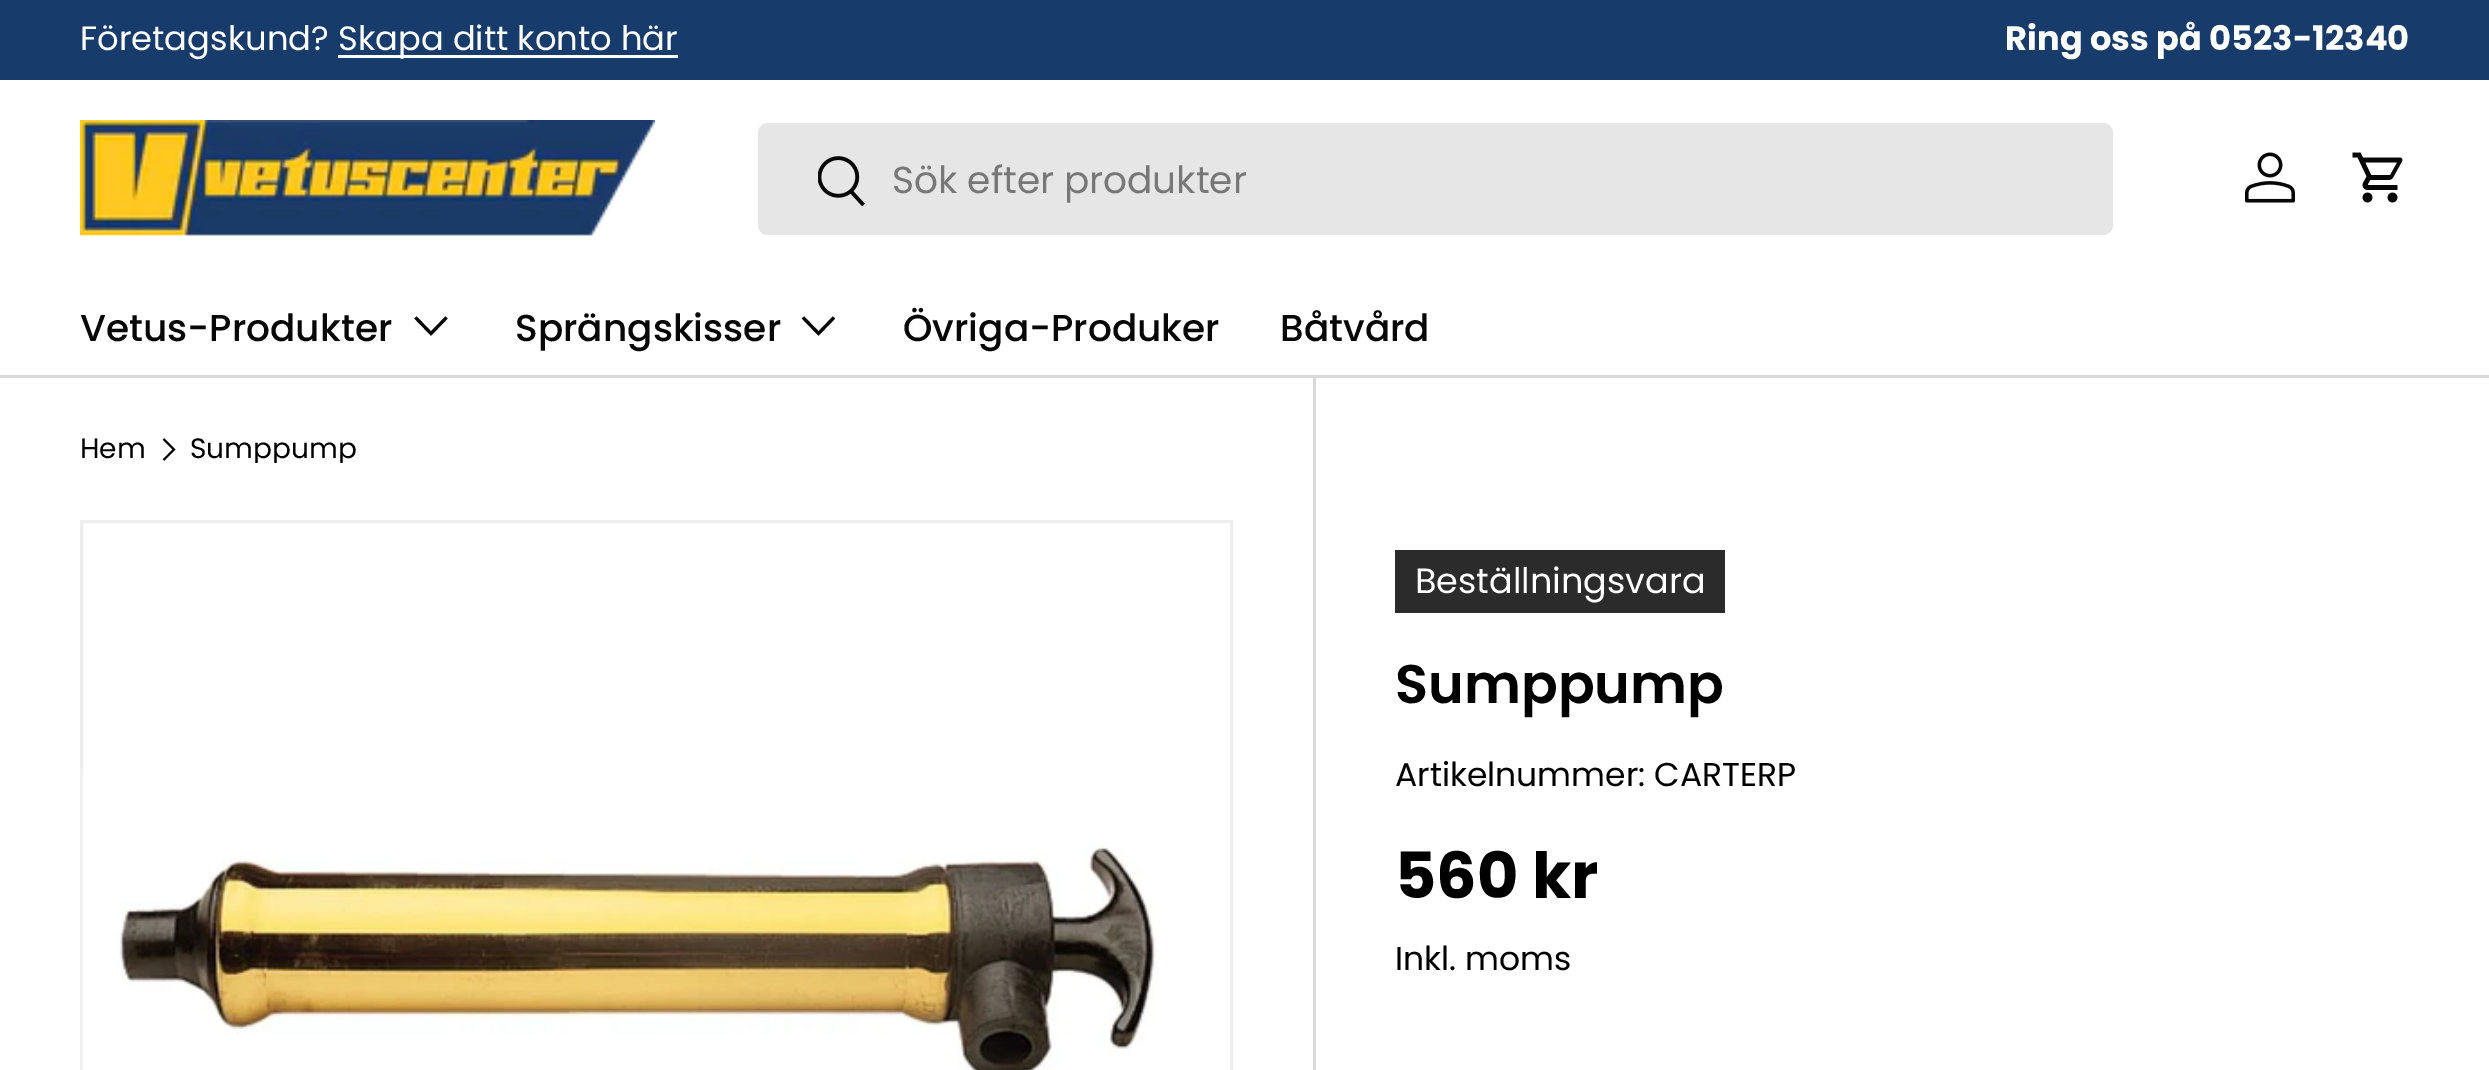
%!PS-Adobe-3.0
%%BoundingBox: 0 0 2489 1070
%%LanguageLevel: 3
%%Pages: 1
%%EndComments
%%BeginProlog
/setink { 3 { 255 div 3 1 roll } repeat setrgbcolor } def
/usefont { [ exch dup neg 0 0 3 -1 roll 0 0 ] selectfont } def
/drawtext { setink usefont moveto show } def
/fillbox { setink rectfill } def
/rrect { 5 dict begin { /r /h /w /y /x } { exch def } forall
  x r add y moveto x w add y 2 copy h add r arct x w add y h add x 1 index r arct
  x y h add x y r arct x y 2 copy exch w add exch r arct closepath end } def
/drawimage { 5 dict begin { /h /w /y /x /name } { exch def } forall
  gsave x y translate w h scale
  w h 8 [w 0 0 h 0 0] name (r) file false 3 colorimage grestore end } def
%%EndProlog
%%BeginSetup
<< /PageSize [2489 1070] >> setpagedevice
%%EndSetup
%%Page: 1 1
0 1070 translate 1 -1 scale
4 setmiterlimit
0 0 2489 1070 255 255 255 fillbox
0 0 2489 80 23 59 107 fillbox
(Företagskund?) 80 50 /Poppins-Regular 33.75 255 255 255 drawtext
338 55 340 3 255 255 255 fillbox
(Skapa ditt konto här) 338 50 /Poppins-Regular 33.75 255 255 255 drawtext
(Ring oss på 0523-12340) 2005 50 /Poppins-Bold 33.75 255 255 255 drawtext
0 375 2489 3 218 218 218 fillbox
(assets/img1.rgb) 80 120 575 116 drawimage
230 230 230 setink
758 123 1355 112 10 rrect fill
(assets/img2.rgb) 818 156 47 51 drawimage
(Sök efter produkter) 892 193 /Poppins-Regular 37.5 119 119 119 drawtext
(assets/img3.rgb) 2245 152 50 51 drawimage
(assets/img4.rgb) 2352 152 51 51 drawimage
(Vetus-Produkter) 80 341 /Poppins-Medium 37.5 7 7 7 drawtext
3.1 setlinewidth
446.5 317.5 moveto 431 333.5 lineto 415.5 317.5 lineto stroke
(Sprängskisser) 515 341 /Poppins-Medium 37.5 7 7 7 drawtext
834 317.5 moveto 818.5 333.5 lineto 803 317.5 lineto stroke
(Övriga-Produker) 903 341 /Poppins-Medium 37.5 7 7 7 drawtext
(Båtvård) 1280 341 /Poppins-Medium 37.5 7 7 7 drawtext
(Hem) 80 458 /Poppins-Regular 28 0 0 0 drawtext
2.1 setlinewidth
163.5 439 moveto 174 449.5 lineto 163.5 460 lineto stroke
gsave
190 435 168 28 rectclip
(Sumppump) 190 458 /Poppins-Regular 28 0 0 0 drawtext
grestore
238 238 238 setink
3 setlinewidth
81.5 521.5 1150 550 rectstroke
(assets/img5.rgb) 82 775 1076 295 drawimage
1313 378 3 692 217 217 217 fillbox
1395 550 330 63 42 43 42 fillbox
(Beställningsvara) 1415 593 /Poppins-Regular 35 255 255 255 drawtext
(Sumppump) 1395 703 /Poppins-SemiBold 54.25 0 0 0 drawtext
(Artikelnummer: CARTERP) 1395 786 /Poppins-Regular 33 0 0 0 drawtext
(560 kr) 1395 898 /Poppins-Bold 63.5 0 0 0 drawtext
(Inkl. moms) 1395 970 /Poppins-Regular 33 0 0 0 drawtext
showpage
%%EOF
